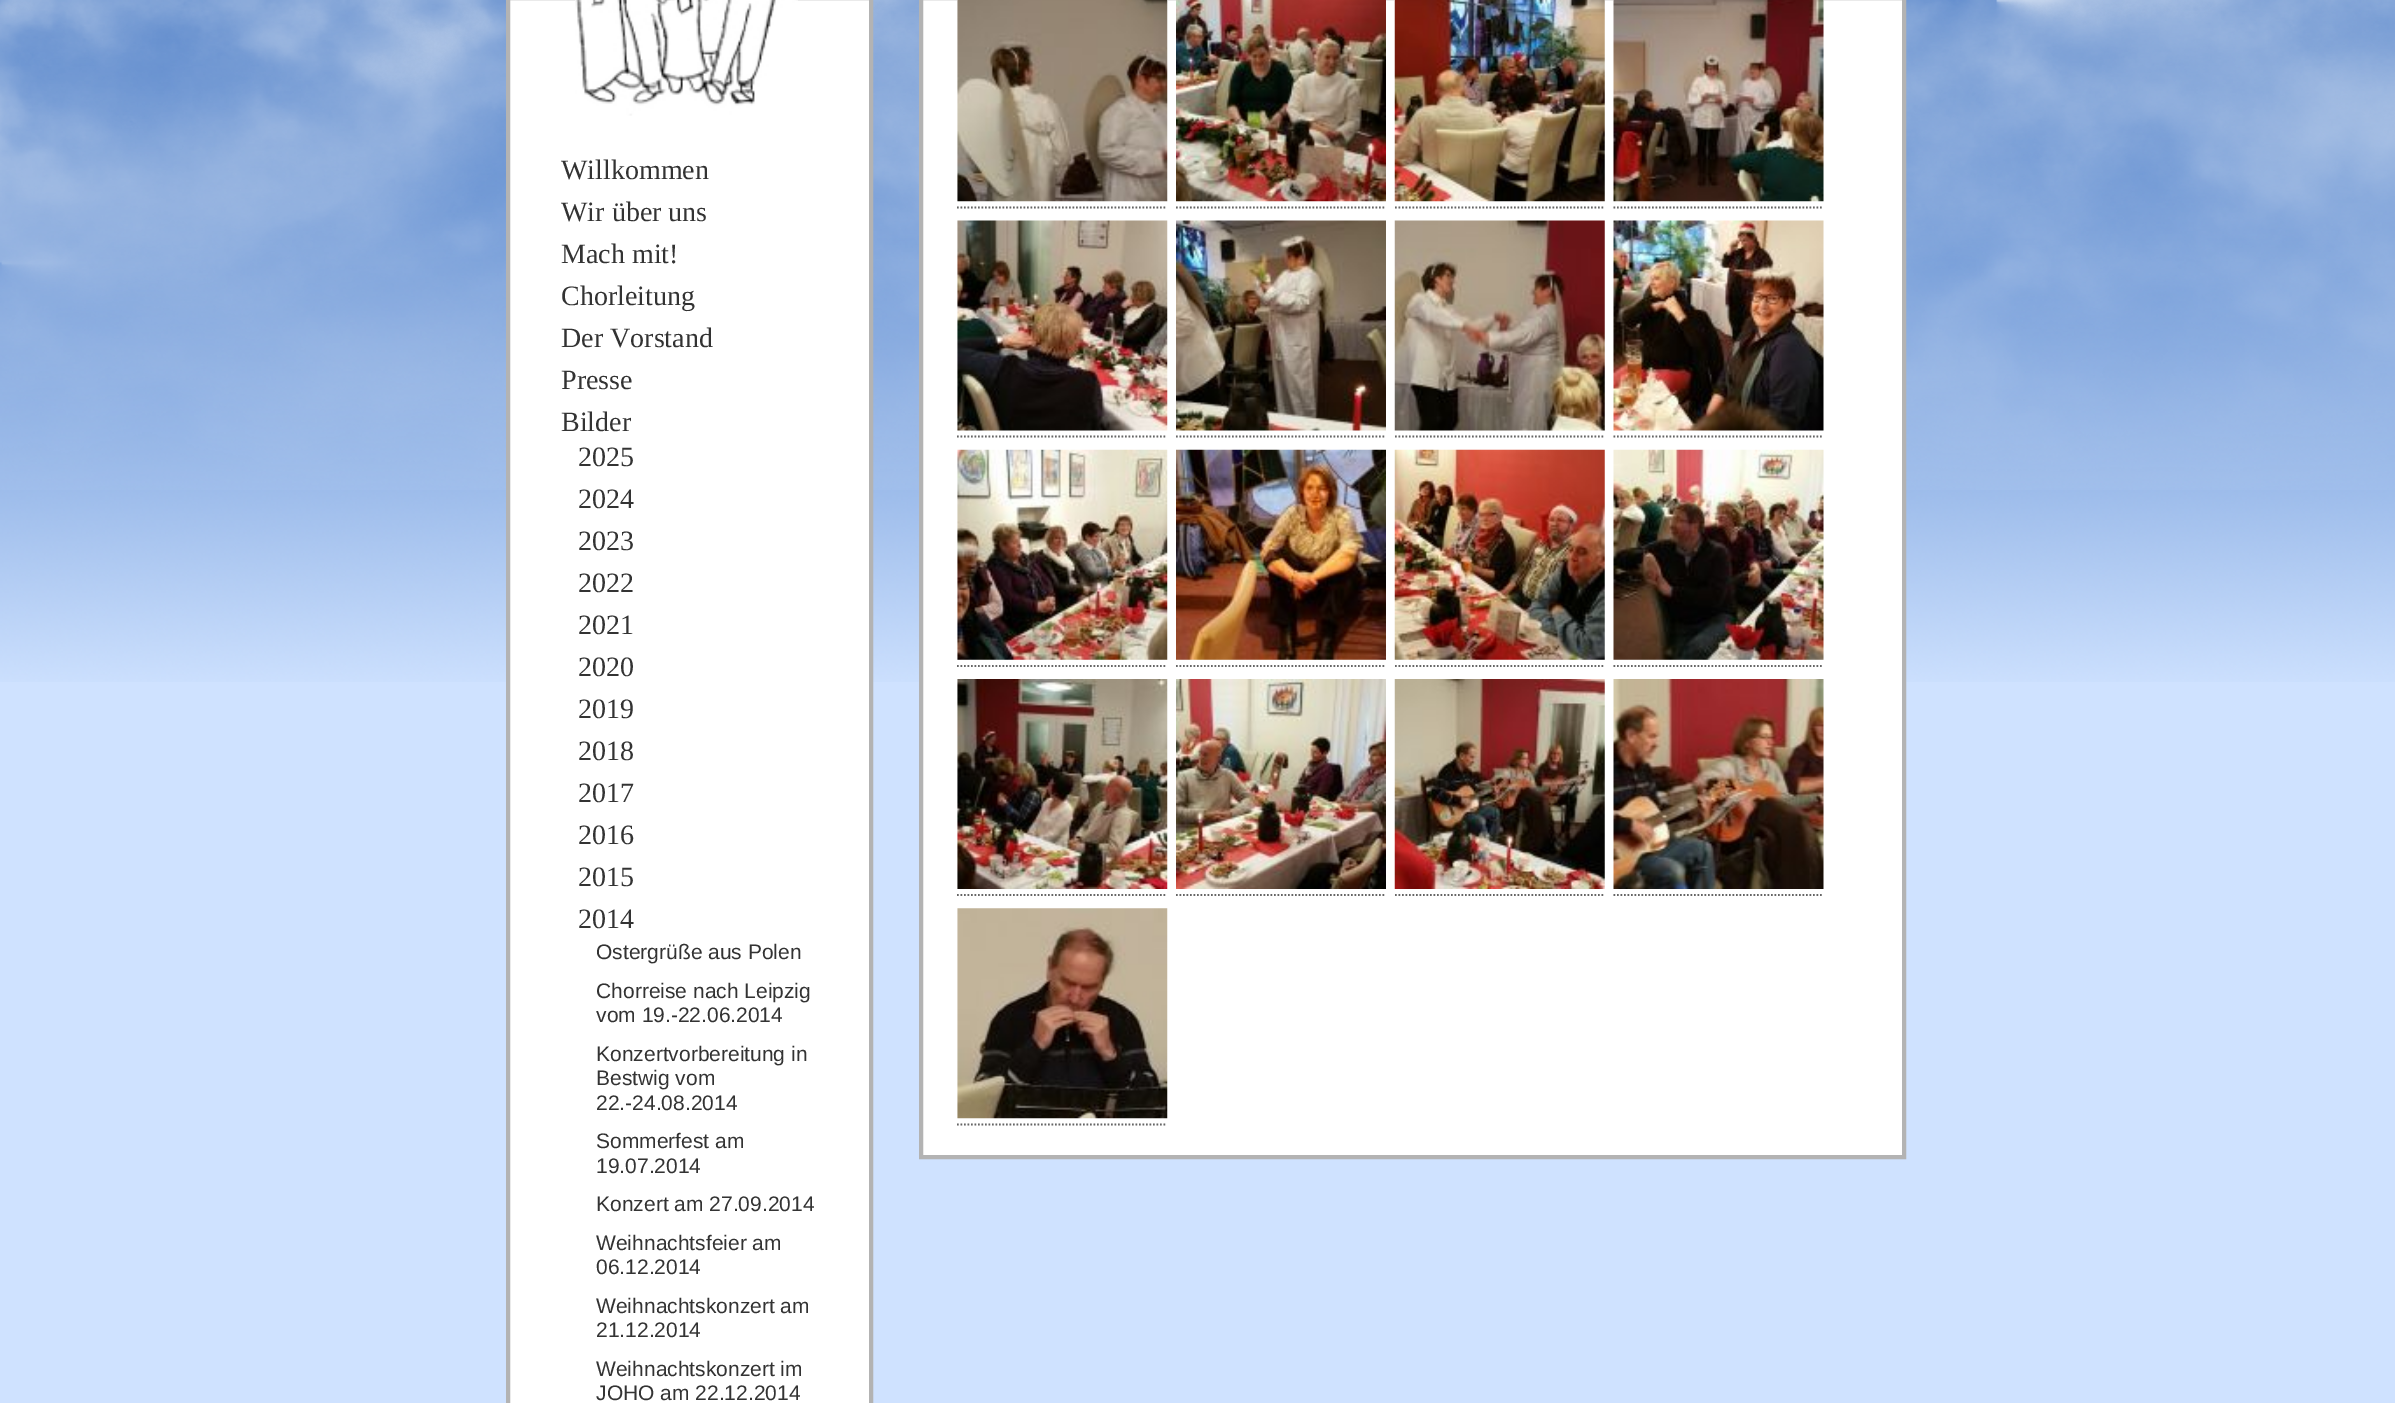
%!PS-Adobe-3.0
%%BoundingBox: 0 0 2395 1403
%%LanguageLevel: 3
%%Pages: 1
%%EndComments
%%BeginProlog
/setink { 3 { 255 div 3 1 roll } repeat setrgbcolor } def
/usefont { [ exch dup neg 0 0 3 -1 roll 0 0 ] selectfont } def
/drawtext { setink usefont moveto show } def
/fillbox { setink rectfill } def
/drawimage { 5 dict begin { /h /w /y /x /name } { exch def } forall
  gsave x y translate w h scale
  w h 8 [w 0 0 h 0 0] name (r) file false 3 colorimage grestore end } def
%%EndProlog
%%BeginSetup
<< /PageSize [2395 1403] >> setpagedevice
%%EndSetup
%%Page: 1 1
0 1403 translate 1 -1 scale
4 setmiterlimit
0 0 2395 1403 207 226 255 fillbox
(assets/img1.rgb) 0 0 2395 682 drawimage
(assets/img2.rgb) 0 0 2395 490 drawimage
255 255 255 setink
508 -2 moveto 871 -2 lineto 871 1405 lineto 508 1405 lineto closepath gsave fill grestore
179 179 179 setink
4 setlinewidth
stroke
(assets/img3.rgb) 575 0 223 116 drawimage
(Willkommen) 561 179 /LiberationSerif-Regular 28 51 51 51 drawtext
(Wir über uns) 561 221 /LiberationSerif-Regular 28 51 51 51 drawtext
(Mach mit!) 561 263 /LiberationSerif-Regular 28 51 51 51 drawtext
(Chorleitung) 561 305 /LiberationSerif-Regular 28 51 51 51 drawtext
(Der Vorstand) 561 347 /LiberationSerif-Regular 28 51 51 51 drawtext
(Presse) 561 389 /LiberationSerif-Regular 28 51 51 51 drawtext
(Bilder) 561 431 /LiberationSerif-Regular 28 51 51 51 drawtext
(2025) 578 466 /LiberationSerif-Regular 28 51 51 51 drawtext
(2024) 578 508 /LiberationSerif-Regular 28 51 51 51 drawtext
(2023) 578 550 /LiberationSerif-Regular 28 51 51 51 drawtext
(2022) 578 592 /LiberationSerif-Regular 28 51 51 51 drawtext
(2021) 578 634 /LiberationSerif-Regular 28 51 51 51 drawtext
(2020) 578 676 /LiberationSerif-Regular 28 51 51 51 drawtext
(2019) 578 718 /LiberationSerif-Regular 28 51 51 51 drawtext
(2018) 578 760 /LiberationSerif-Regular 28 51 51 51 drawtext
(2017) 578 802 /LiberationSerif-Regular 28 51 51 51 drawtext
(2016) 578 844 /LiberationSerif-Regular 28 51 51 51 drawtext
(2015) 578 886 /LiberationSerif-Regular 28 51 51 51 drawtext
(2014) 578 928 /LiberationSerif-Regular 28 51 51 51 drawtext
(Ostergrüße aus Polen) 596 959 /LiberationSans-Regular 21 51 51 51 drawtext
(Chorreise nach Leipzig) 596 998 /LiberationSans-Regular 21 51 51 51 drawtext
(vom 19.-22.06.2014) 596 1022 /LiberationSans-Regular 21 51 51 51 drawtext
(Konzertvorbereitung in) 596 1061 /LiberationSans-Regular 21 51 51 51 drawtext
(Bestwig vom) 596 1085 /LiberationSans-Regular 21 51 51 51 drawtext
(22.-24.08.2014) 596 1110 /LiberationSans-Regular 21 51 51 51 drawtext
(Sommerfest am) 596 1148 /LiberationSans-Regular 21 51 51 51 drawtext
(19.07.2014) 596 1173 /LiberationSans-Regular 21 51 51 51 drawtext
(Konzert am 27.09.2014) 596 1211 /LiberationSans-Regular 21 51 51 51 drawtext
(Weihnachtsfeier am) 596 1250 /LiberationSans-Regular 21 51 51 51 drawtext
(06.12.2014) 596 1274 /LiberationSans-Regular 21 51 51 51 drawtext
(Weihnachtskonzert am) 596 1313 /LiberationSans-Regular 21 51 51 51 drawtext
(21.12.2014) 596 1337 /LiberationSans-Regular 21 51 51 51 drawtext
(Weihnachtskonzert im) 596 1376 /LiberationSans-Regular 21 51 51 51 drawtext
(JOHO am 22.12.2014) 596 1400 /LiberationSans-Regular 21 51 51 51 drawtext
255 255 255 setink
921 -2 moveto 1904 -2 lineto 1904 1157 lineto 921 1157 lineto closepath gsave fill grestore
179 179 179 setink
stroke
(assets/img4.rgb) 957 0 211 202 drawimage
102 102 102 setink
1.8 setlinewidth
[1.75 1.75] 0 setdash
957 207.5 moveto 1167 207.5 lineto stroke
(assets/img5.rgb) 1176 0 210 202 drawimage
1176 207.5 moveto 1386 207.5 lineto stroke
(assets/img6.rgb) 1394 0 211 202 drawimage
1395 207.5 moveto 1605 207.5 lineto stroke
(assets/img7.rgb) 1613 0 211 202 drawimage
1613.5 207.5 moveto 1823.5 207.5 lineto stroke
(assets/img8.rgb) 957 220 211 211 drawimage
957 436.5 moveto 1167 436.5 lineto stroke
(assets/img9.rgb) 1176 220 210 211 drawimage
1176 436.5 moveto 1386 436.5 lineto stroke
(assets/img10.rgb) 1394 220 211 211 drawimage
1395 436.5 moveto 1605 436.5 lineto stroke
(assets/img11.rgb) 1613 220 211 211 drawimage
1613.5 436.5 moveto 1823.5 436.5 lineto stroke
(assets/img12.rgb) 957 449 211 211 drawimage
957 666 moveto 1167 666 lineto stroke
(assets/img13.rgb) 1176 449 210 211 drawimage
1176 666 moveto 1386 666 lineto stroke
(assets/img14.rgb) 1394 449 211 211 drawimage
1395 666 moveto 1605 666 lineto stroke
(assets/img15.rgb) 1613 449 211 211 drawimage
1613.5 666 moveto 1823.5 666 lineto stroke
(assets/img16.rgb) 957 679 211 210 drawimage
957 895 moveto 1167 895 lineto stroke
(assets/img17.rgb) 1176 679 210 210 drawimage
1176 895 moveto 1386 895 lineto stroke
(assets/img18.rgb) 1394 679 211 210 drawimage
1395 895 moveto 1605 895 lineto stroke
(assets/img19.rgb) 1613 679 211 210 drawimage
1613.5 895 moveto 1823.5 895 lineto stroke
(assets/img20.rgb) 957 908 211 211 drawimage
957 1124.5 moveto 1167 1124.5 lineto stroke
showpage
%%EOF
